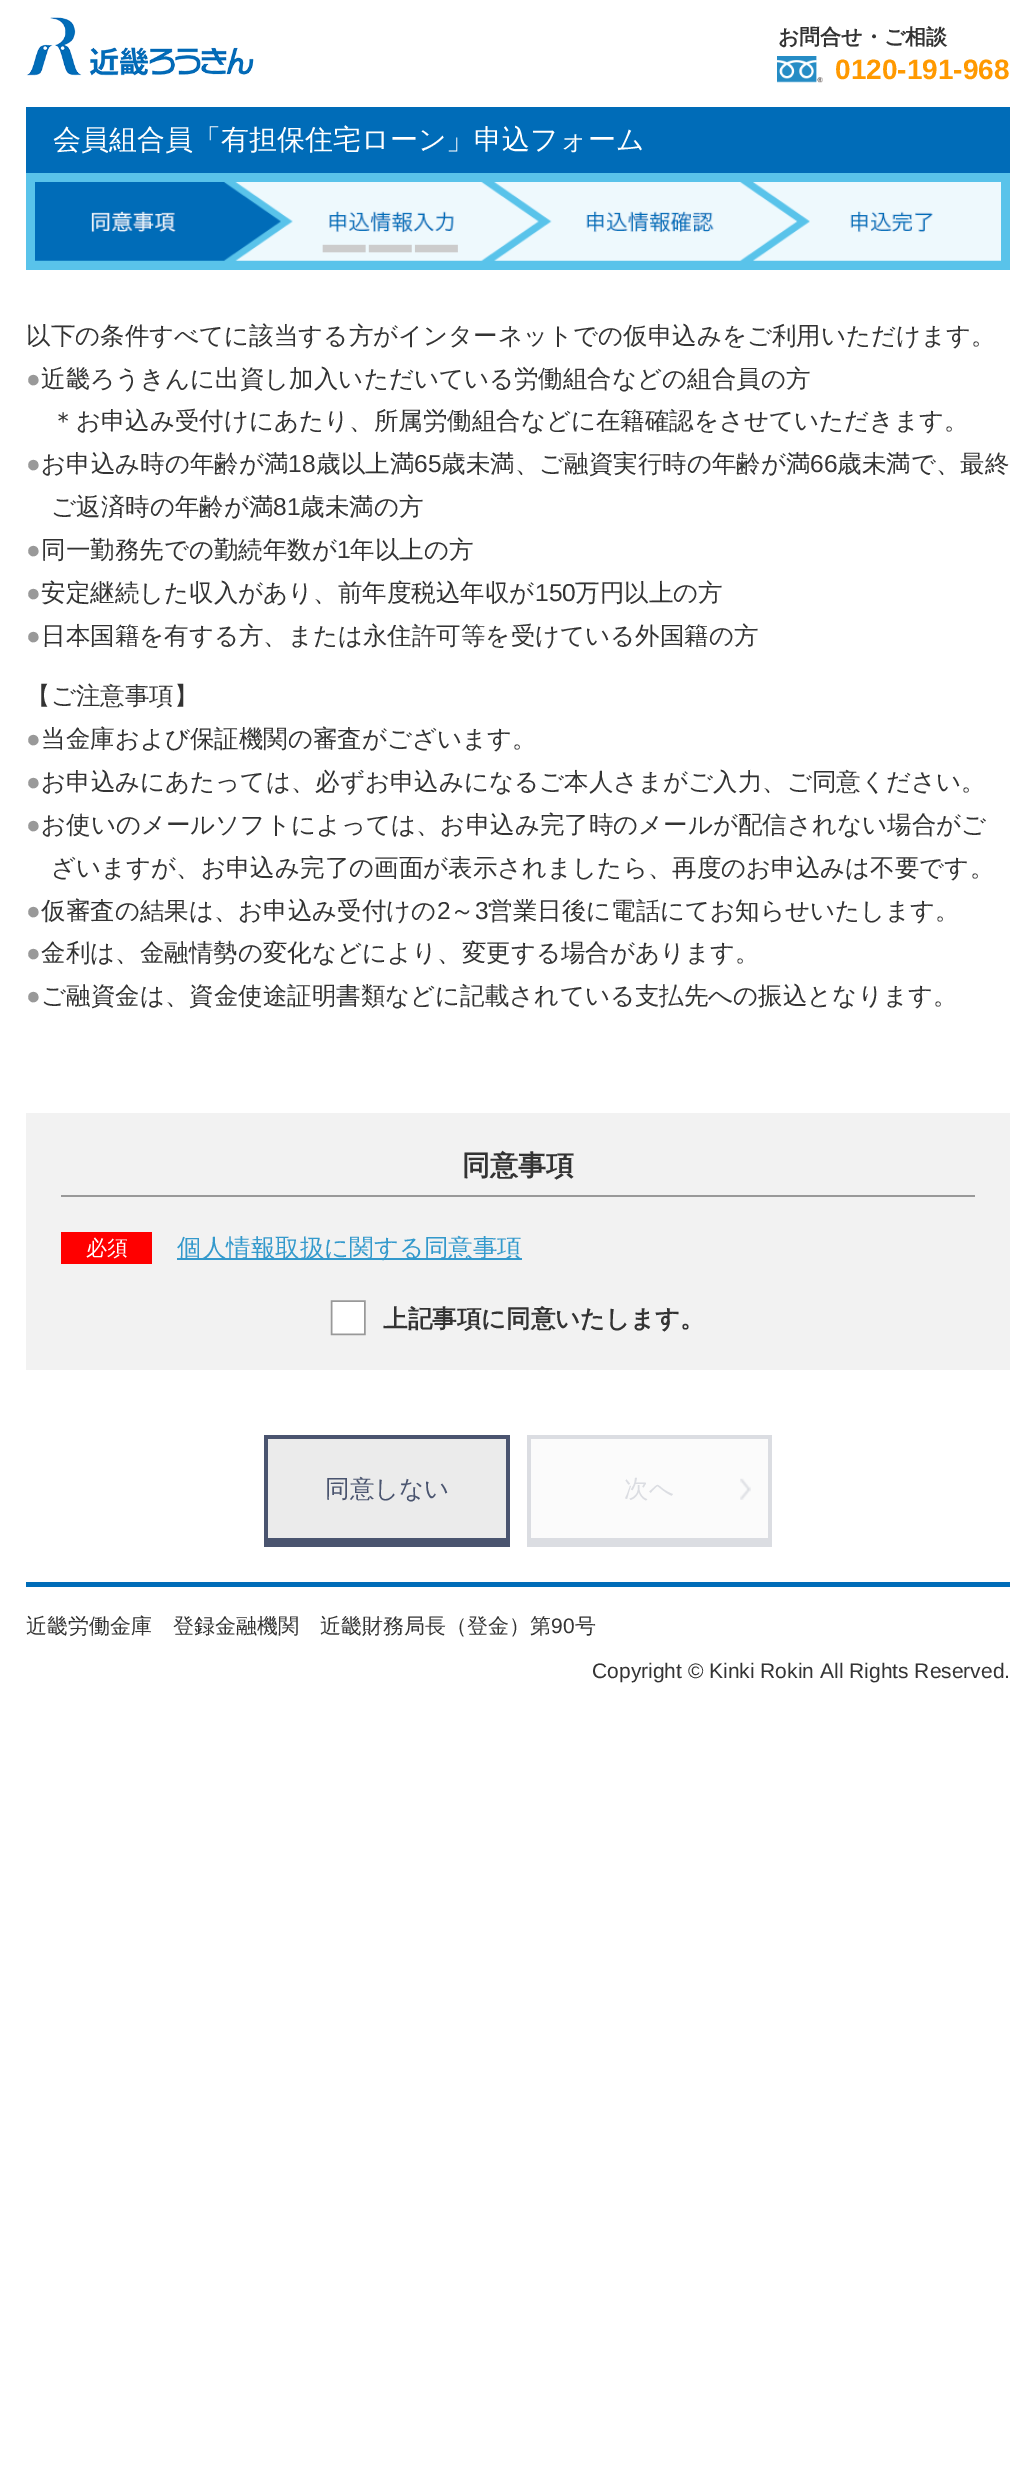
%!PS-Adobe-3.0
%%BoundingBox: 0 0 1035 2484
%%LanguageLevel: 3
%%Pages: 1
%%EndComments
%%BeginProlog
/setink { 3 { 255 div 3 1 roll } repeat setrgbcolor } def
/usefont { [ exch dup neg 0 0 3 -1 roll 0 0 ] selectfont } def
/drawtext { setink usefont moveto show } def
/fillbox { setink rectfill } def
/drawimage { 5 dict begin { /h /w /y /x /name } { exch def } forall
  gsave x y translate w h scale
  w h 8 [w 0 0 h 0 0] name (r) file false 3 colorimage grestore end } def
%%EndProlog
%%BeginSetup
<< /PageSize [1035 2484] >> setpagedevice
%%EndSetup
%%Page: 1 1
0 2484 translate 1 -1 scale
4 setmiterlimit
0 0 1035 2484 255 255 255 fillbox
(assets/img1.rgb) 26 17 228 59 drawimage
(お問合せ・ご相談) 778 44 /WenQuanYiZenHei-Bold 21 51 51 51 drawtext
(assets/img2.rgb) 777 56 46 27 drawimage
(0120-191-968) 835 79 /LiberationSans-Bold 28 255 153 0 drawtext
26 107 984 66 0 108 184 fillbox
(会員組合員「有担保住宅ローン」申込フォーム) 53 149 /WenQuanYiZenHei-Medium 28 255 255 255 drawtext
26 173 984 97 89 195 234 fillbox
(assets/img3.rgb) 35 182 966 79 drawimage
(以下の条件すべてに該当する方がインターネットでの仮申込みをご利用いただけます。) 26 344 /WenQuanYiZenHei-Medium 24.5 51 51 51 drawtext
(●) 26 387 /LiberationSans-Regular 24.5 153 153 153 drawtext
(近畿ろうきんに出資し加入いただいている労働組合などの組合員の方) 41 387 /WenQuanYiZenHei-Medium 24.5 51 51 51 drawtext
(＊お申込み受付けにあたり、所属労働組合などに在籍確認をさせていただきます。) 51 429 /WenQuanYiZenHei-Medium 24.5 51 51 51 drawtext
(●) 26 472 /LiberationSans-Regular 24.5 153 153 153 drawtext
(お申込み時の年齢が満) 41 472 /WenQuanYiZenHei-Medium 24.5 51 51 51 drawtext
(18) 288 472 /LiberationSans-Regular 24.5 51 51 51 drawtext
(歳以上満) 316 472 /WenQuanYiZenHei-Medium 24.5 51 51 51 drawtext
(65) 414 472 /LiberationSans-Regular 24.5 51 51 51 drawtext
(歳未満、ご融資実行時の年齢が満) 441 472 /WenQuanYiZenHei-Medium 24.5 51 51 51 drawtext
(66) 810 472 /LiberationSans-Regular 24.5 51 51 51 drawtext
(歳未満で、最終) 837 472 /WenQuanYiZenHei-Medium 24.5 51 51 51 drawtext
(ご返済時の年齢が満) 51 515 /WenQuanYiZenHei-Medium 24.5 51 51 51 drawtext
(81) 273 515 /LiberationSans-Regular 24.5 51 51 51 drawtext
(歳未満の方) 300 515 /WenQuanYiZenHei-Medium 24.5 51 51 51 drawtext
(●) 26 558 /LiberationSans-Regular 24.5 153 153 153 drawtext
(同一勤務先での勤続年数が) 41 558 /WenQuanYiZenHei-Medium 24.5 51 51 51 drawtext
(1) 337 558 /LiberationSans-Regular 24.5 51 51 51 drawtext
(年以上の方) 350 558 /WenQuanYiZenHei-Medium 24.5 51 51 51 drawtext
(●) 26 601 /LiberationSans-Regular 24.5 153 153 153 drawtext
(安定継続した収入があり、前年度税込年収が) 41 601 /WenQuanYiZenHei-Medium 24.5 51 51 51 drawtext
(150) 535 601 /LiberationSans-Regular 24.5 51 51 51 drawtext
(万円以上の方) 575 601 /WenQuanYiZenHei-Medium 24.5 51 51 51 drawtext
(●) 26 644 /LiberationSans-Regular 24.5 153 153 153 drawtext
(日本国籍を有する方、または永住許可等を受けている外国籍の方) 41 644 /WenQuanYiZenHei-Medium 24.5 51 51 51 drawtext
(【ご注意事項】) 26 704 /WenQuanYiZenHei-Medium 24.5 51 51 51 drawtext
(●) 26 747 /LiberationSans-Regular 24.5 153 153 153 drawtext
(当金庫および保証機関の審査がございます。) 41 747 /WenQuanYiZenHei-Medium 24.5 51 51 51 drawtext
(●) 26 790 /LiberationSans-Regular 24.5 153 153 153 drawtext
(お申込みにあたっては、必ずお申込みになるご本人さまがご入力、ご同意ください。) 41 790 /WenQuanYiZenHei-Medium 24.5 51 51 51 drawtext
(●) 26 833 /LiberationSans-Regular 24.5 153 153 153 drawtext
(お使いのメールソフトによっては、お申込み完了時のメールが配信されない場合がご) 41 833 /WenQuanYiZenHei-Medium 24.5 51 51 51 drawtext
(ざいますが、お申込み完了の画面が表示されましたら、再度のお申込みは不要です。) 51 876 /WenQuanYiZenHei-Medium 24.5 51 51 51 drawtext
(●) 26 919 /LiberationSans-Regular 24.5 153 153 153 drawtext
(仮審査の結果は、お申込み受付けの) 41 919 /WenQuanYiZenHei-Medium 24.5 51 51 51 drawtext
(2) 437 919 /LiberationSans-Regular 24.5 51 51 51 drawtext
(～) 450 919 /WenQuanYiZenHei-Medium 24.5 51 51 51 drawtext
(3) 475 919 /LiberationSans-Regular 24.5 51 51 51 drawtext
(営業日後に電話にてお知らせいたします。) 488 919 /WenQuanYiZenHei-Medium 24.5 51 51 51 drawtext
(●) 26 961 /LiberationSans-Regular 24.5 153 153 153 drawtext
(金利は、金融情勢の変化などにより、変更する場合があります。) 41 961 /WenQuanYiZenHei-Medium 24.5 51 51 51 drawtext
(●) 26 1004 /LiberationSans-Regular 24.5 153 153 153 drawtext
(ご融資金は、資金使途証明書類などに記載されている支払先への振込となります。) 41 1004 /WenQuanYiZenHei-Medium 24.5 51 51 51 drawtext
26 1113 984 257 242 242 242 fillbox
61 1195 914 2 153 153 153 fillbox
(同意事項) 462 1175 /WenQuanYiZenHei-Bold 28 51 51 51 drawtext
61 1232 91 32 255 0 0 fillbox
(必須) 86 1255 /WenQuanYiZenHei-Medium 21 255 255 255 drawtext
177 1258 345 2 51 153 204 fillbox
(個人情報取扱に関する同意事項) 177 1256 /WenQuanYiZenHei-Medium 24.5 51 153 204 drawtext
(assets/img4.rgb) 330 1300 36 36 drawimage
(上記事項に同意いたします。) 383 1327 /WenQuanYiZenHei-Bold 24.5 51 51 51 drawtext
268 1439 238 99 235 235 235 fillbox
264 1435 245 4 74 84 111 fillbox
506 1435 4 112 74 84 111 fillbox
268 1538 238 9 74 84 111 fillbox
264 1435 4 112 74 84 111 fillbox
(同意しない) 325 1497 /WenQuanYiZenHei-Medium 24.5 74 84 111 drawtext
531 1439 237 99 251 251 251 fillbox
527 1435 245 4 219 221 226 fillbox
768 1435 4 103 219 221 226 fillbox
531 1538 241 9 219 221 226 fillbox
527 1435 4 112 219 221 226 fillbox
(次へ) 624 1497 /WenQuanYiZenHei-Medium 24.5 219 221 226 drawtext
(assets/img5.rgb) 740 1478 11 22 drawimage
26 1582 984 5 0 108 184 fillbox
(近畿労働金庫　登録金融機関　近畿財務局長（登金）第) 26 1633 /WenQuanYiZenHei-Medium 21 51 51 51 drawtext
(90) 551 1633 /LiberationSans-Regular 21 51 51 51 drawtext
(号) 575 1633 /WenQuanYiZenHei-Medium 21 51 51 51 drawtext
(Copyright © Kinki Rokin All Rights Reserved.) 592 1678 /LiberationSans-Regular 21 51 51 51 drawtext
showpage
%%EOF
